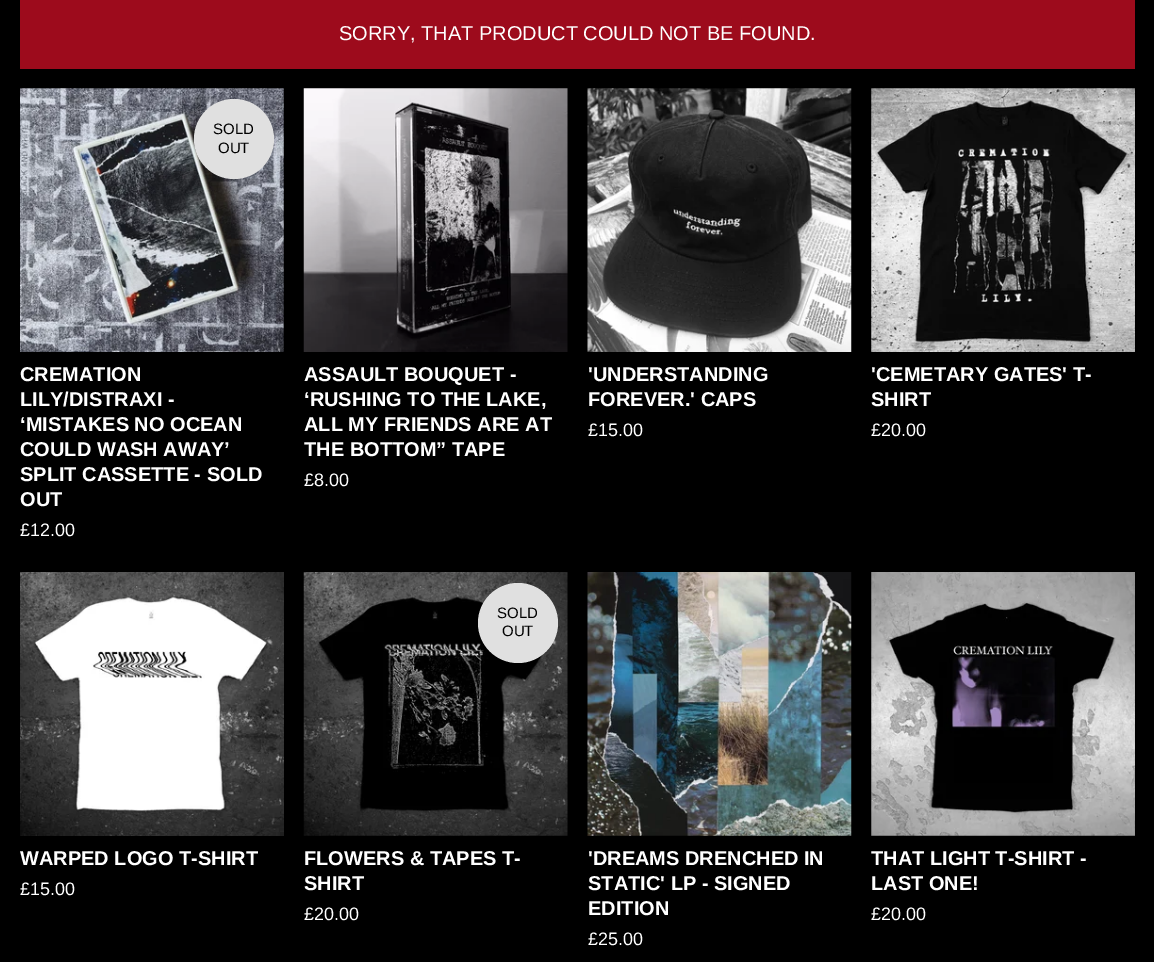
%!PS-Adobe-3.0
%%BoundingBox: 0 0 1154 962
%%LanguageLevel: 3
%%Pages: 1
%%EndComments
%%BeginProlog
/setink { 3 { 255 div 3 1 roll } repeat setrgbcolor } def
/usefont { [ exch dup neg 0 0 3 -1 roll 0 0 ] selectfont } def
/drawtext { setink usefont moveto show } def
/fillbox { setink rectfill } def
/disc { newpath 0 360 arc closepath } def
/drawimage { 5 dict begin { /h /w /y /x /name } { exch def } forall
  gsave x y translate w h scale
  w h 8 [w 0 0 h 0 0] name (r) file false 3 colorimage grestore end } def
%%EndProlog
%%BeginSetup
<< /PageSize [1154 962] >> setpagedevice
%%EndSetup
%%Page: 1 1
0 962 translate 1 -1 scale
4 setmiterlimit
0 0 1154 962 0 0 0 fillbox
20 0 1115 69 157 11 28 fillbox
(SORRY, THAT PRODUCT COULD NOT BE FOUND.) 339 40 /LiberationSans-Regular 20 255 255 255 drawtext
(assets/img1.rgb) 20 88 264 264 drawimage
224 224 224 setink
234 139 40 disc fill
(SOLD) 213 134 /LiberationSans-Regular 15 0 0 0 drawtext
(OUT) 218 153 /LiberationSans-Regular 15 0 0 0 drawtext
(CREMATION) 20 381 /LiberationSans-Bold 20 255 255 255 drawtext
(LILY/DISTRAXI -) 20 406 /LiberationSans-Bold 20 255 255 255 drawtext
(‘MISTAKES NO OCEAN) 20 431 /LiberationSans-Bold 20 255 255 255 drawtext
(COULD WASH AWAY’) 20 456 /LiberationSans-Bold 20 255 255 255 drawtext
(SPLIT CASSETTE - SOLD) 20 481 /LiberationSans-Bold 20 255 255 255 drawtext
(OUT) 20 506 /LiberationSans-Bold 20 255 255 255 drawtext
(£12.00) 20 536 /LiberationSans-Regular 18 255 255 255 drawtext
(assets/img2.rgb) 303 88 265 264 drawimage
(ASSAULT BOUQUET -) 304 381 /LiberationSans-Bold 20 255 255 255 drawtext
(‘RUSHING TO THE LAKE,) 304 406 /LiberationSans-Bold 20 255 255 255 drawtext
(ALL MY FRIENDS ARE AT) 304 431 /LiberationSans-Bold 20 255 255 255 drawtext
(THE BOTTOM” TAPE) 304 456 /LiberationSans-Bold 20 255 255 255 drawtext
(£8.00) 304 486 /LiberationSans-Regular 18 255 255 255 drawtext
(assets/img3.rgb) 587 88 265 264 drawimage
('UNDERSTANDING) 588 381 /LiberationSans-Bold 20 255 255 255 drawtext
(FOREVER.' CAPS) 588 406 /LiberationSans-Bold 20 255 255 255 drawtext
(£15.00) 588 436 /LiberationSans-Regular 18 255 255 255 drawtext
(assets/img4.rgb) 871 88 264 264 drawimage
('CEMETARY GATES' T-) 871 381 /LiberationSans-Bold 20 255 255 255 drawtext
(SHIRT) 871 406 /LiberationSans-Bold 20 255 255 255 drawtext
(£20.00) 871 436 /LiberationSans-Regular 18 255 255 255 drawtext
(assets/img5.rgb) 20 572 264 264 drawimage
(WARPED LOGO T-SHIRT) 20 865 /LiberationSans-Bold 20 255 255 255 drawtext
(£15.00) 20 895 /LiberationSans-Regular 18 255 255 255 drawtext
(assets/img6.rgb) 303 572 265 264 drawimage
224 224 224 setink
518 623 40 disc fill
(SOLD) 497 618 /LiberationSans-Regular 15 0 0 0 drawtext
(OUT) 502 636 /LiberationSans-Regular 15 0 0 0 drawtext
(FLOWERS & TAPES T-) 304 865 /LiberationSans-Bold 20 255 255 255 drawtext
(SHIRT) 304 890 /LiberationSans-Bold 20 255 255 255 drawtext
(£20.00) 304 920 /LiberationSans-Regular 18 255 255 255 drawtext
(assets/img7.rgb) 587 572 265 264 drawimage
('DREAMS DRENCHED IN) 588 865 /LiberationSans-Bold 20 255 255 255 drawtext
(STATIC' LP - SIGNED) 588 890 /LiberationSans-Bold 20 255 255 255 drawtext
(EDITION) 588 915 /LiberationSans-Bold 20 255 255 255 drawtext
(£25.00) 588 945 /LiberationSans-Regular 18 255 255 255 drawtext
(assets/img8.rgb) 871 572 264 264 drawimage
(THAT LIGHT T-SHIRT -) 871 865 /LiberationSans-Bold 20 255 255 255 drawtext
(LAST ONE!) 871 890 /LiberationSans-Bold 20 255 255 255 drawtext
(£20.00) 871 920 /LiberationSans-Regular 18 255 255 255 drawtext
showpage
%%EOF
